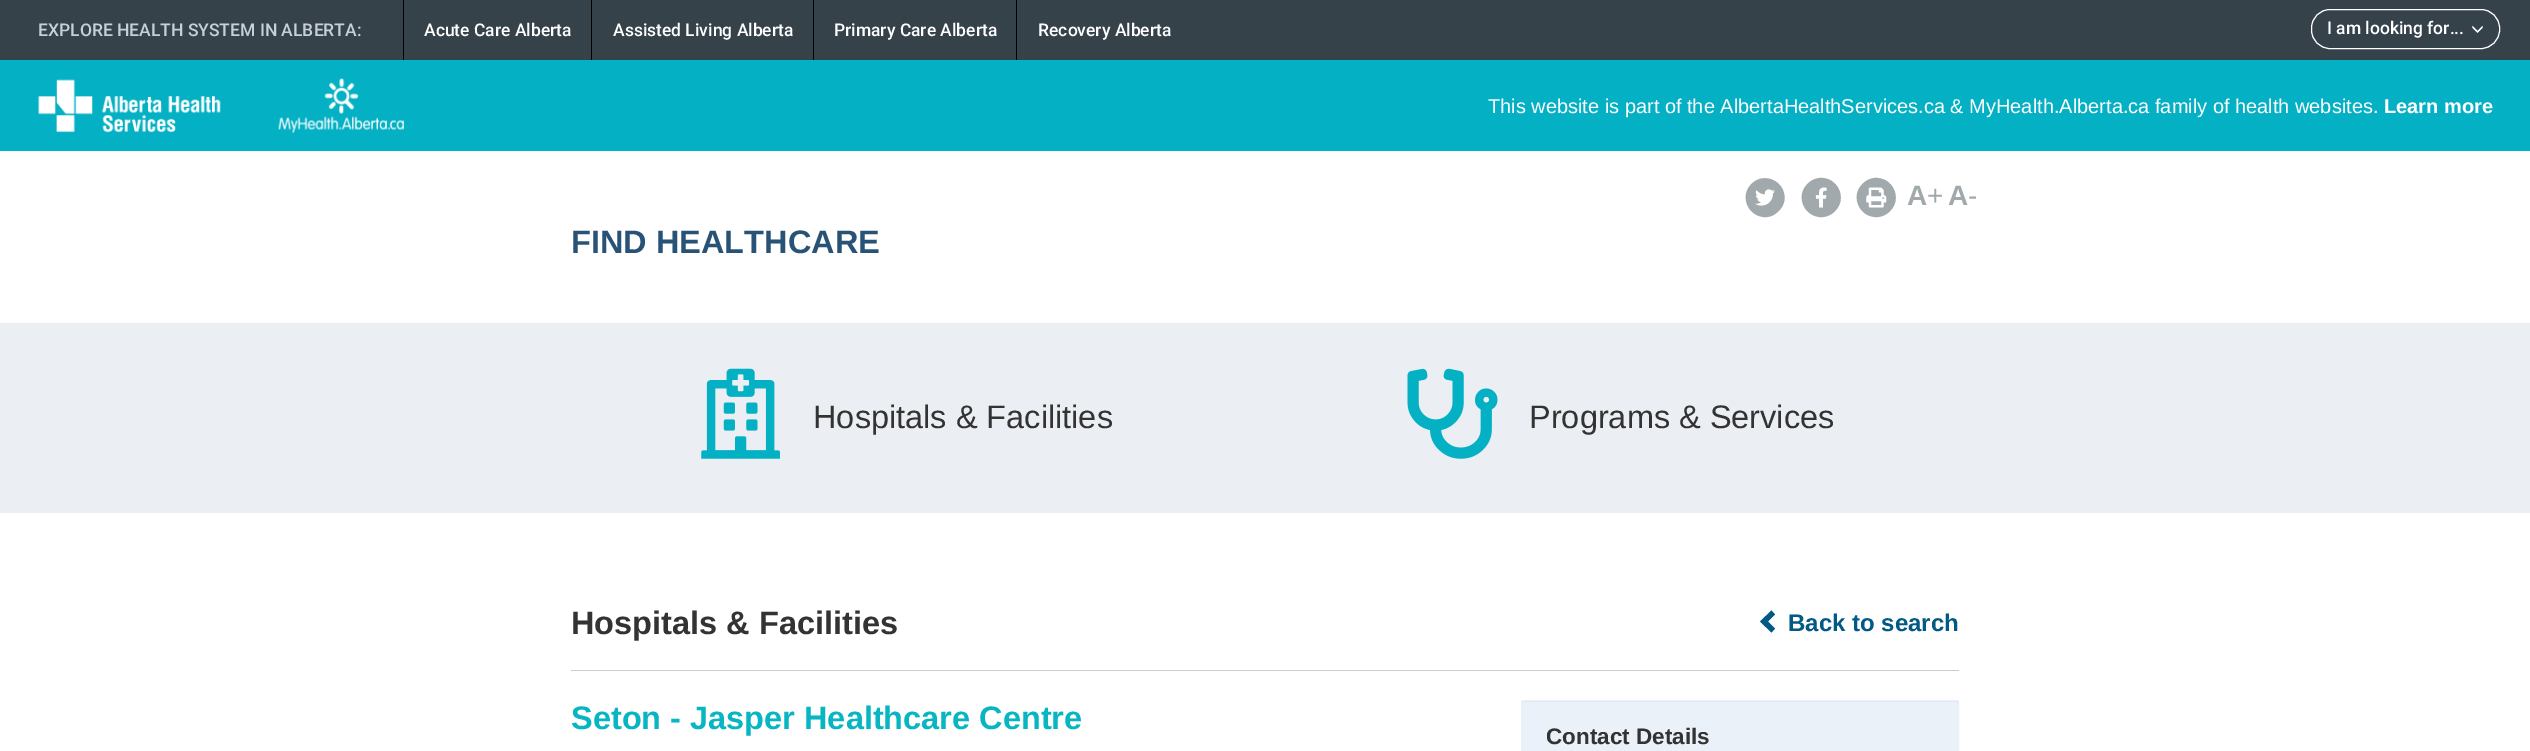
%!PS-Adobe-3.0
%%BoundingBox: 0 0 2530 751
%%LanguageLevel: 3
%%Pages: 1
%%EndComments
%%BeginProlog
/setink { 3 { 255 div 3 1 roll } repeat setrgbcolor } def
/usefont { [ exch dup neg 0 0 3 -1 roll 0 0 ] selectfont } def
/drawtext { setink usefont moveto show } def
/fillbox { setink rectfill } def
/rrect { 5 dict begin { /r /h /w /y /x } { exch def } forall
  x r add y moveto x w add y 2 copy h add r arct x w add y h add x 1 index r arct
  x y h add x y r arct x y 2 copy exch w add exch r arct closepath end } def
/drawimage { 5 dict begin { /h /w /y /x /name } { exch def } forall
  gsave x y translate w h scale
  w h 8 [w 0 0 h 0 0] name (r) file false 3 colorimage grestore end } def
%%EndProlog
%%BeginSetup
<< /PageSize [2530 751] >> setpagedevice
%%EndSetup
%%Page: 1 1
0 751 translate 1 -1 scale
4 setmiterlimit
0 0 2530 751 255 255 255 fillbox
0 0 2530 60 54 66 74 fillbox
(EXPLORE HEALTH SYSTEM IN ALBERTA:) 38 36 /Roboto-Medium 17.5 198 208 214 drawtext
403 0 1 60 0 0 0 fillbox
(Acute Care Alberta) 424 36 /Roboto-Medium 17.5 255 255 255 drawtext
591 0 1 60 0 0 0 fillbox
(Assisted Living Alberta) 613 36 /Roboto-Medium 17.5 255 255 255 drawtext
813 0 1 60 0 0 0 fillbox
(Primary Care Alberta) 834 36 /Roboto-Medium 17.5 255 255 255 drawtext
1016 0 1 60 0 0 0 fillbox
(Recovery Alberta) 1038 36 /Roboto-Medium 17.5 255 255 255 drawtext
2311.5 9.5 188 39 18.5 rrect stroke
(I am looking for...) 2327 34 /Roboto-Medium 17.5 255 255 255 drawtext
(assets/img1.rgb) 2472 25 11 8 drawimage
0 60 2530 91 4 176 196 fillbox
(assets/img2.rgb) 38 79 183 54 drawimage
(assets/img3.rgb) 278 78 126 55 drawimage
(This website is part of the AlbertaHealthServices.ca & MyHealth.Alberta.ca family of health websites.) 1488 113 /LiberationSans-Regular 20 255 255 255 drawtext
(Learn more) 2384 113 /LiberationSans-Bold 20 255 255 255 drawtext
161 169 172 setink
1751.5 184 moveto 1764 171 1786 181.5 1784.5 199.5 curveto 1784 204 1782 208 1778.5 211 curveto 1775.5 214.5 1771.5 216.5 1767 217 curveto 1749 218.5 1738.5 196.5 1751.5 184 curveto closepath fill
(assets/img4.rgb) 1755 189 20 17 drawimage
1807.5 184 moveto 1810.5 180.5 1815 178.5 1819.5 178 curveto 1837.5 176.5 1848 198.5 1835 211 curveto 1832 214.5 1827.5 216.5 1823 217 curveto 1805 218.5 1794.5 196.5 1807.5 184 curveto closepath fill
(assets/img5.rgb) 1815 187 12 21 drawimage
1862.5 184 moveto 1865.5 180.5 1870 178.5 1874.5 178 curveto 1892.5 176.5 1903 198.5 1890 211 curveto 1887 214.5 1882.5 216.5 1878 217 curveto 1860 218.5 1849.5 196.5 1862.5 184 curveto closepath fill
(assets/img6.rgb) 1866 187 21 21 drawimage
(A) 1907 205 /LiberationSans-Bold 28 161 169 172 drawtext
(+) 1927 205 /LiberationSans-Regular 28 161 169 172 drawtext
(A) 1948 205 /LiberationSans-Bold 28 161 169 172 drawtext
(-) 1968 205 /LiberationSans-Regular 28 161 169 172 drawtext
(FIND HEALTHCARE) 571 253 /LiberationSans-Bold 32.5 41 83 118 drawtext
0 323 2530 190 235 239 243 fillbox
(assets/img7.rgb) 701 368 79 91 drawimage
(Hospitals & Facilities) 813 428 /LiberationSans-Regular 32.5 51 51 51 drawtext
(assets/img8.rgb) 1407 368 91 91 drawimage
(Programs & Services) 1529 428 /LiberationSans-Regular 32.5 51 51 51 drawtext
(Hospitals & Facilities) 571 634 /LiberationSans-Bold 32.5 51 51 51 drawtext
0 90 131 setink
1775 614.5 moveto 1768 621.5 lineto 1775 628.5 lineto 1771.5 632.5 lineto 1760 621.5 lineto 1771.5 610.5 lineto closepath fill
(Back to search) 1788 631 /LiberationSans-Bold 24 0 90 131 drawtext
571 670 1388 1 204 204 204 fillbox
(Seton - Jasper Healthcare Centre) 571 729 /LiberationSans-Bold 32.5 7 181 195 drawtext
234 241 248 setink
1521 700 438 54 2.5 rrect fill
222 229 236 setink
1524 702 moveto 1956 702 lineto 1957 702 1958 703 1958 704 curveto 1958 703 1958 701 1957 701 curveto 1524 701 lineto 1523 702 lineto closepath fill
234 241 248 setink
1521.5 700.5 437 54 2 rrect stroke
(Contact Details) 1546 744 /LiberationSans-Bold 22.5 51 51 51 drawtext
showpage
%%EOF
